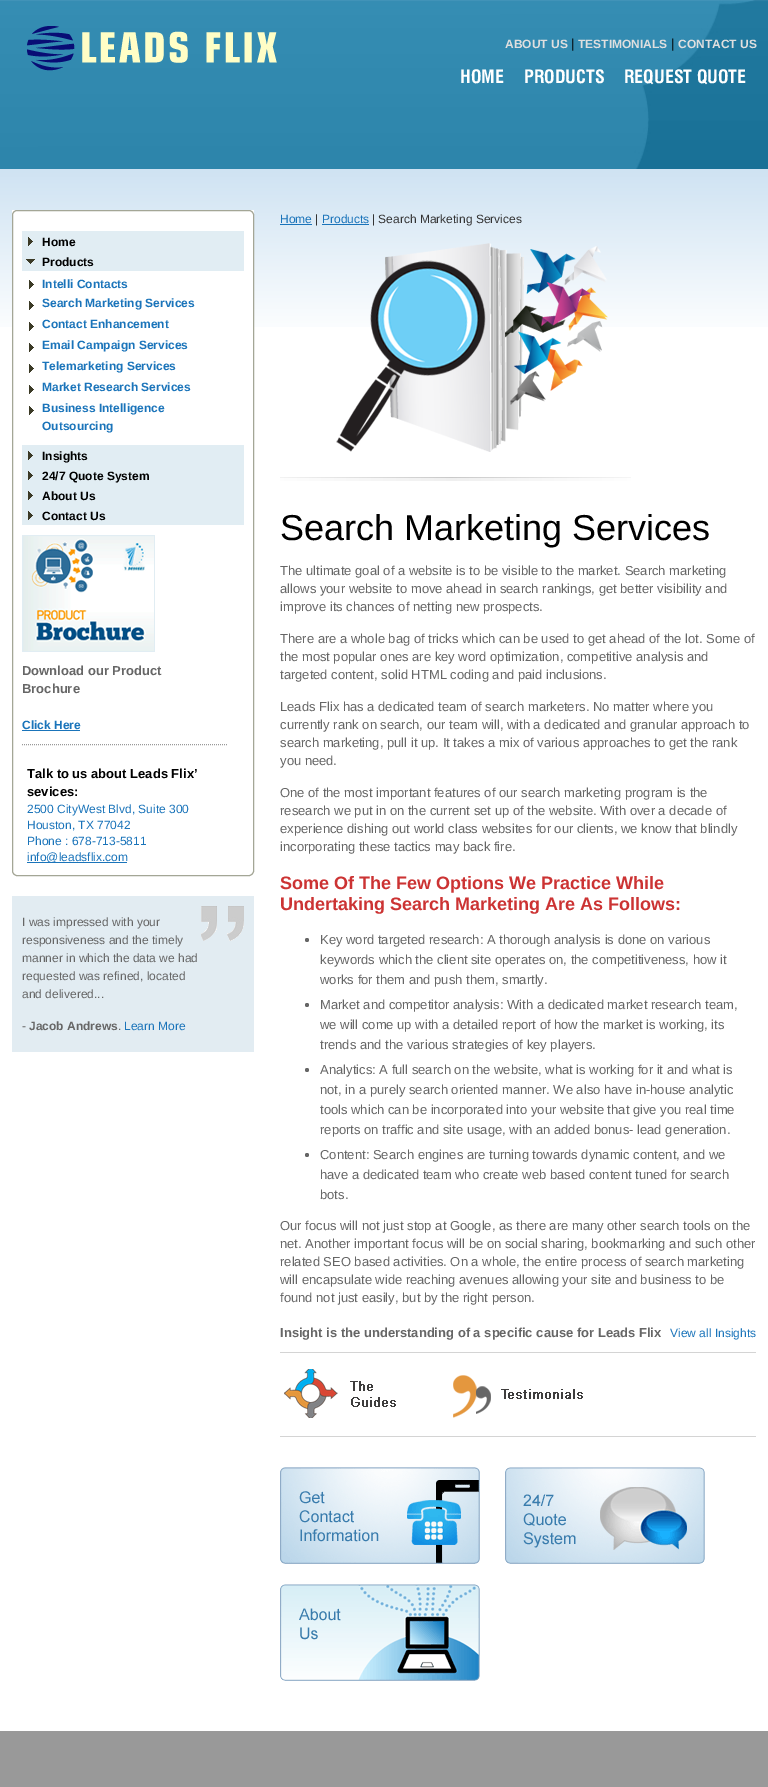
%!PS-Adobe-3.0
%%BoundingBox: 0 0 768 1787
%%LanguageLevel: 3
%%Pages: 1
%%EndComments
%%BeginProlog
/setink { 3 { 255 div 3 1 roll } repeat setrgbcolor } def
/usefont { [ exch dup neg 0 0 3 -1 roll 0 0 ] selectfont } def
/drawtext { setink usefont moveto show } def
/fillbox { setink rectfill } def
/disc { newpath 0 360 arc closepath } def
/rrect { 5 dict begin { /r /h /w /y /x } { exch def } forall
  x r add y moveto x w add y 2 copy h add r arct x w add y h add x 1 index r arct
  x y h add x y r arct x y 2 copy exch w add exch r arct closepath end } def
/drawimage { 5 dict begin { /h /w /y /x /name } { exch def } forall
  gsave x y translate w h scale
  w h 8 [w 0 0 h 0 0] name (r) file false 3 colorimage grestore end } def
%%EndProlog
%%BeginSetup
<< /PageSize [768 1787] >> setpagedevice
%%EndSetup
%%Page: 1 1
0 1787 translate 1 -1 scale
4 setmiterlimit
0 0 768 1787 255 255 255 fillbox
(assets/img1.rgb) 0 169 768 158 drawimage
(assets/img2.rgb) 0 0 768 169 drawimage
(assets/img3.rgb) 27 26 250 45 drawimage
(ABOUT US) 505 48 /LiberationSans-Bold 12 223 223 223 drawtext
(|) 571 48 /LiberationSans-Regular 13 0 0 0 drawtext
(TESTIMONIALS) 578 48 /LiberationSans-Bold 12 223 223 223 drawtext
(|) 671 48 /LiberationSans-Regular 13 0 0 0 drawtext
(CONTACT US) 678 48 /LiberationSans-Bold 12 223 223 223 drawtext
(HOME) 460 83 /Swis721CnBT-Bold 18 255 255 255 drawtext
(PRODUCTS) 524 83 /Swis721CnBT-Bold 18 255 255 255 drawtext
(REQUEST QUOTE) 624 83 /Swis721CnBT-Bold 18 255 255 255 drawtext
12 210 242 117 255 255 255 fillbox
164 166 150 setink
12.5 210.5 241 665 4.5 rrect stroke
22 231 222 40 225 237 243 fillbox
(assets/img4.rgb) 28 237 5 9 drawimage
(Home) 42 246 /LiberationSans-Bold 12 0 0 0 drawtext
(assets/img5.rgb) 26 259 9 5 drawimage
(Products) 42 266 /LiberationSans-Bold 12 0 0 0 drawtext
(assets/img6.rgb) 29 280 5 9 drawimage
(Intelli Contacts) 42 288 /LiberationSans-Bold 12 26 116 186 drawtext
(assets/img6.rgb) 29 301 5 9 drawimage
(Search Marketing Services) 42 307 /LiberationSans-Bold 12 26 116 186 drawtext
(assets/img6.rgb) 29 322 5 9 drawimage
(Contact Enhancement) 42 328 /LiberationSans-Bold 12 26 116 186 drawtext
(assets/img6.rgb) 29 343 5 9 drawimage
(Email Campaign Services) 42 349 /LiberationSans-Bold 12 26 116 186 drawtext
(assets/img6.rgb) 29 364 5 9 drawimage
(Telemarketing Services) 42 370 /LiberationSans-Bold 12 26 116 186 drawtext
(assets/img6.rgb) 29 385 5 9 drawimage
(Market Research Services) 42 391 /LiberationSans-Bold 12 26 116 186 drawtext
(assets/img6.rgb) 29 406 5 9 drawimage
(Business Intelligence) 42 412 /LiberationSans-Bold 12 26 116 186 drawtext
(Outsourcing) 42 430 /LiberationSans-Bold 12 26 116 186 drawtext
22 445 222 80 225 237 243 fillbox
(assets/img4.rgb) 28 451 5 9 drawimage
(Insights) 42 460 /LiberationSans-Bold 12 0 0 0 drawtext
(assets/img4.rgb) 28 471 5 9 drawimage
(24/7 Quote System) 42 480 /LiberationSans-Bold 12 0 0 0 drawtext
(assets/img4.rgb) 28 491 5 9 drawimage
(About Us) 42 500 /LiberationSans-Bold 12 0 0 0 drawtext
(assets/img4.rgb) 28 511 5 9 drawimage
(Contact Us) 42 520 /LiberationSans-Bold 12 0 0 0 drawtext
153 153 153 setink
[1 1] 0 setdash
22 744.5 moveto 227 744.5 lineto stroke
(assets/img7.rgb) 22 535 133 117 drawimage
(Download our Product) 22 675 /LiberationSans-Bold 13 102 102 102 drawtext
(Brochure) 22 693 /LiberationSans-Bold 13 102 102 102 drawtext
(Click Here) 22 729 /LiberationSans-Bold 12 26 116 186 drawtext
22 730 58 1 26 116 186 fillbox
(Talk to us about Leads Flix’) 27 778 /LiberationSans-Bold 13 0 0 0 drawtext
(sevices:) 27 796 /LiberationSans-Bold 13 0 0 0 drawtext
(2500 CityWest Blvd, Suite 300) 27 813 /LiberationSans-Regular 12 26 116 186 drawtext
(Houston, TX 77042) 27 829 /LiberationSans-Regular 12 26 116 186 drawtext
(Phone : 678-713-5811) 27 845 /LiberationSans-Regular 12 26 116 186 drawtext
27 862 100 1 26 116 186 fillbox
(info@leadsflix.com) 27 861 /LiberationSans-Regular 12 26 116 186 drawtext
12 896 242 156 226 236 242 fillbox
(I was impressed with your) 22 926 /LiberationSans-Regular 12 102 102 102 drawtext
(responsiveness and the timely) 22 944 /LiberationSans-Regular 12 102 102 102 drawtext
(manner in which the data we had) 22 962 /LiberationSans-Regular 12 102 102 102 drawtext
(requested was refined, located) 22 980 /LiberationSans-Regular 12 102 102 102 drawtext
(and delivered...) 22 998 /LiberationSans-Regular 12 102 102 102 drawtext
(assets/img8.rgb) 201 906 43 35 drawimage
(-) 22 1030 /LiberationSans-Regular 12 102 102 102 drawtext
(Jacob Andrews) 29 1030 /LiberationSans-Bold 12 102 102 102 drawtext
(Learn More) 124 1030 /LiberationSans-Regular 12 26 116 186 drawtext
(.) 118 1030 /LiberationSans-Regular 12 102 102 102 drawtext
(Home) 280 223 /LiberationSans-Regular 12 26 116 186 drawtext
280 224 32 1 26 116 186 fillbox
(|) 315 223 /LiberationSans-Regular 12 51 51 51 drawtext
(Products) 322 223 /LiberationSans-Regular 12 26 116 186 drawtext
322 224 47 1 26 116 186 fillbox
(| Search Marketing Services) 372 223 /LiberationSans-Regular 12 51 51 51 drawtext
(assets/img9.rgb) 280 243 351 238 drawimage
(Search Marketing Services) 280 540 /LiberationSans-Regular 36 0 0 0 drawtext
(The ultimate goal of a website is to be visible to the market. Search marketing) 280 575 /LiberationSans-Regular 13 102 102 102 drawtext
(allows your website to move ahead in search rankings, get better visibility and) 280 593 /LiberationSans-Regular 13 102 102 102 drawtext
(improve its chances of netting new prospects.) 280 611 /LiberationSans-Regular 13 102 102 102 drawtext
(There are a whole bag of tricks which can be used to get ahead of the lot. Some of) 280 643 /LiberationSans-Regular 13 102 102 102 drawtext
(the most popular ones are key word optimization, competitive analysis and) 280 661 /LiberationSans-Regular 13 102 102 102 drawtext
(targeted content, solid HTML coding and paid inclusions.) 280 679 /LiberationSans-Regular 13 102 102 102 drawtext
(Leads Flix has a dedicated team of search marketers. No matter where you) 280 711 /LiberationSans-Regular 13 102 102 102 drawtext
(currently rank on search, our team will, with a dedicated and granular approach to) 280 729 /LiberationSans-Regular 13 102 102 102 drawtext
(search marketing, pull it up. It takes a mix of various approaches to get the rank) 280 747 /LiberationSans-Regular 13 102 102 102 drawtext
(you need.) 280 765 /LiberationSans-Regular 13 102 102 102 drawtext
(One of the most important features of our search marketing program is the) 280 797 /LiberationSans-Regular 13 102 102 102 drawtext
(research we put in on the current set up of the website. With over a decade of) 280 815 /LiberationSans-Regular 13 102 102 102 drawtext
(experience dishing out world class websites for our clients, we know that blindly) 280 833 /LiberationSans-Regular 13 102 102 102 drawtext
(incorporating these tactics may back fire.) 280 851 /LiberationSans-Regular 13 102 102 102 drawtext
(Some Of The Few Options We Practice While) 280 889 /LiberationSans-Bold 18 204 51 51 drawtext
(Undertaking Search Marketing Are As Follows:) 280 910 /LiberationSans-Bold 18 204 51 51 drawtext
102 102 102 setink
307 940 2 disc fill
(Key word targeted research: A thorough analysis is done on various) 320 944 /LiberationSans-Regular 13 102 102 102 drawtext
(keywords which the client site operates on, the competitiveness, how it) 320 964 /LiberationSans-Regular 13 102 102 102 drawtext
(works for them and push them, smartly.) 320 984 /LiberationSans-Regular 13 102 102 102 drawtext
307 1005 2 disc fill
(Market and competitor analysis: With a dedicated market research team,) 320 1009 /LiberationSans-Regular 13 102 102 102 drawtext
(we will come up with a detailed report of how the market is working, its) 320 1029 /LiberationSans-Regular 13 102 102 102 drawtext
(trends and the various strategies of key players.) 320 1049 /LiberationSans-Regular 13 102 102 102 drawtext
307 1070 2 disc fill
(Analytics: A full search on the website, what is working for it and what is) 320 1074 /LiberationSans-Regular 13 102 102 102 drawtext
(not, in a purely search oriented manner. We also have in-house analytic) 320 1094 /LiberationSans-Regular 13 102 102 102 drawtext
(tools which can be incorporated into your website that give you real time) 320 1114 /LiberationSans-Regular 13 102 102 102 drawtext
(reports on traffic and site usage, with an added bonus- lead generation.) 320 1134 /LiberationSans-Regular 13 102 102 102 drawtext
307 1155 2 disc fill
(Content: Search engines are turning towards dynamic content, and we) 320 1159 /LiberationSans-Regular 13 102 102 102 drawtext
(have a dedicated team who create web based content tuned for search) 320 1179 /LiberationSans-Regular 13 102 102 102 drawtext
(bots.) 320 1199 /LiberationSans-Regular 13 102 102 102 drawtext
(Our focus will not just stop at Google, as there are many other search tools on the) 280 1230 /LiberationSans-Regular 13 102 102 102 drawtext
(net. Another important focus will be on social sharing, bookmarking and such other) 280 1248 /LiberationSans-Regular 13 102 102 102 drawtext
(related SEO based activities. On a whole, the entire process of search marketing) 280 1266 /LiberationSans-Regular 13 102 102 102 drawtext
(will encapsulate wide reaching avenues allowing your site and business to be) 280 1284 /LiberationSans-Regular 13 102 102 102 drawtext
(found not just easily, but by the right person.) 280 1302 /LiberationSans-Regular 13 102 102 102 drawtext
(Insight is the understanding of a specific cause for Leads Flix) 280 1337 /LiberationSans-Bold 13 102 102 102 drawtext
(View all Insights) 670 1337 /LiberationSans-Regular 12 26 116 186 drawtext
280 1352 476 1 212 212 212 fillbox
280 1436 476 1 212 212 212 fillbox
(assets/img10.rgb) 284 1369 112 49 drawimage
(assets/img11.rgb) 453 1375 130 43 drawimage
(assets/img12.rgb) 280 1467 200 97 drawimage
(assets/img13.rgb) 505 1467 200 97 drawimage
(assets/img14.rgb) 280 1584 200 97 drawimage
0 1731 768 56 153 153 153 fillbox
showpage
%%EOF
